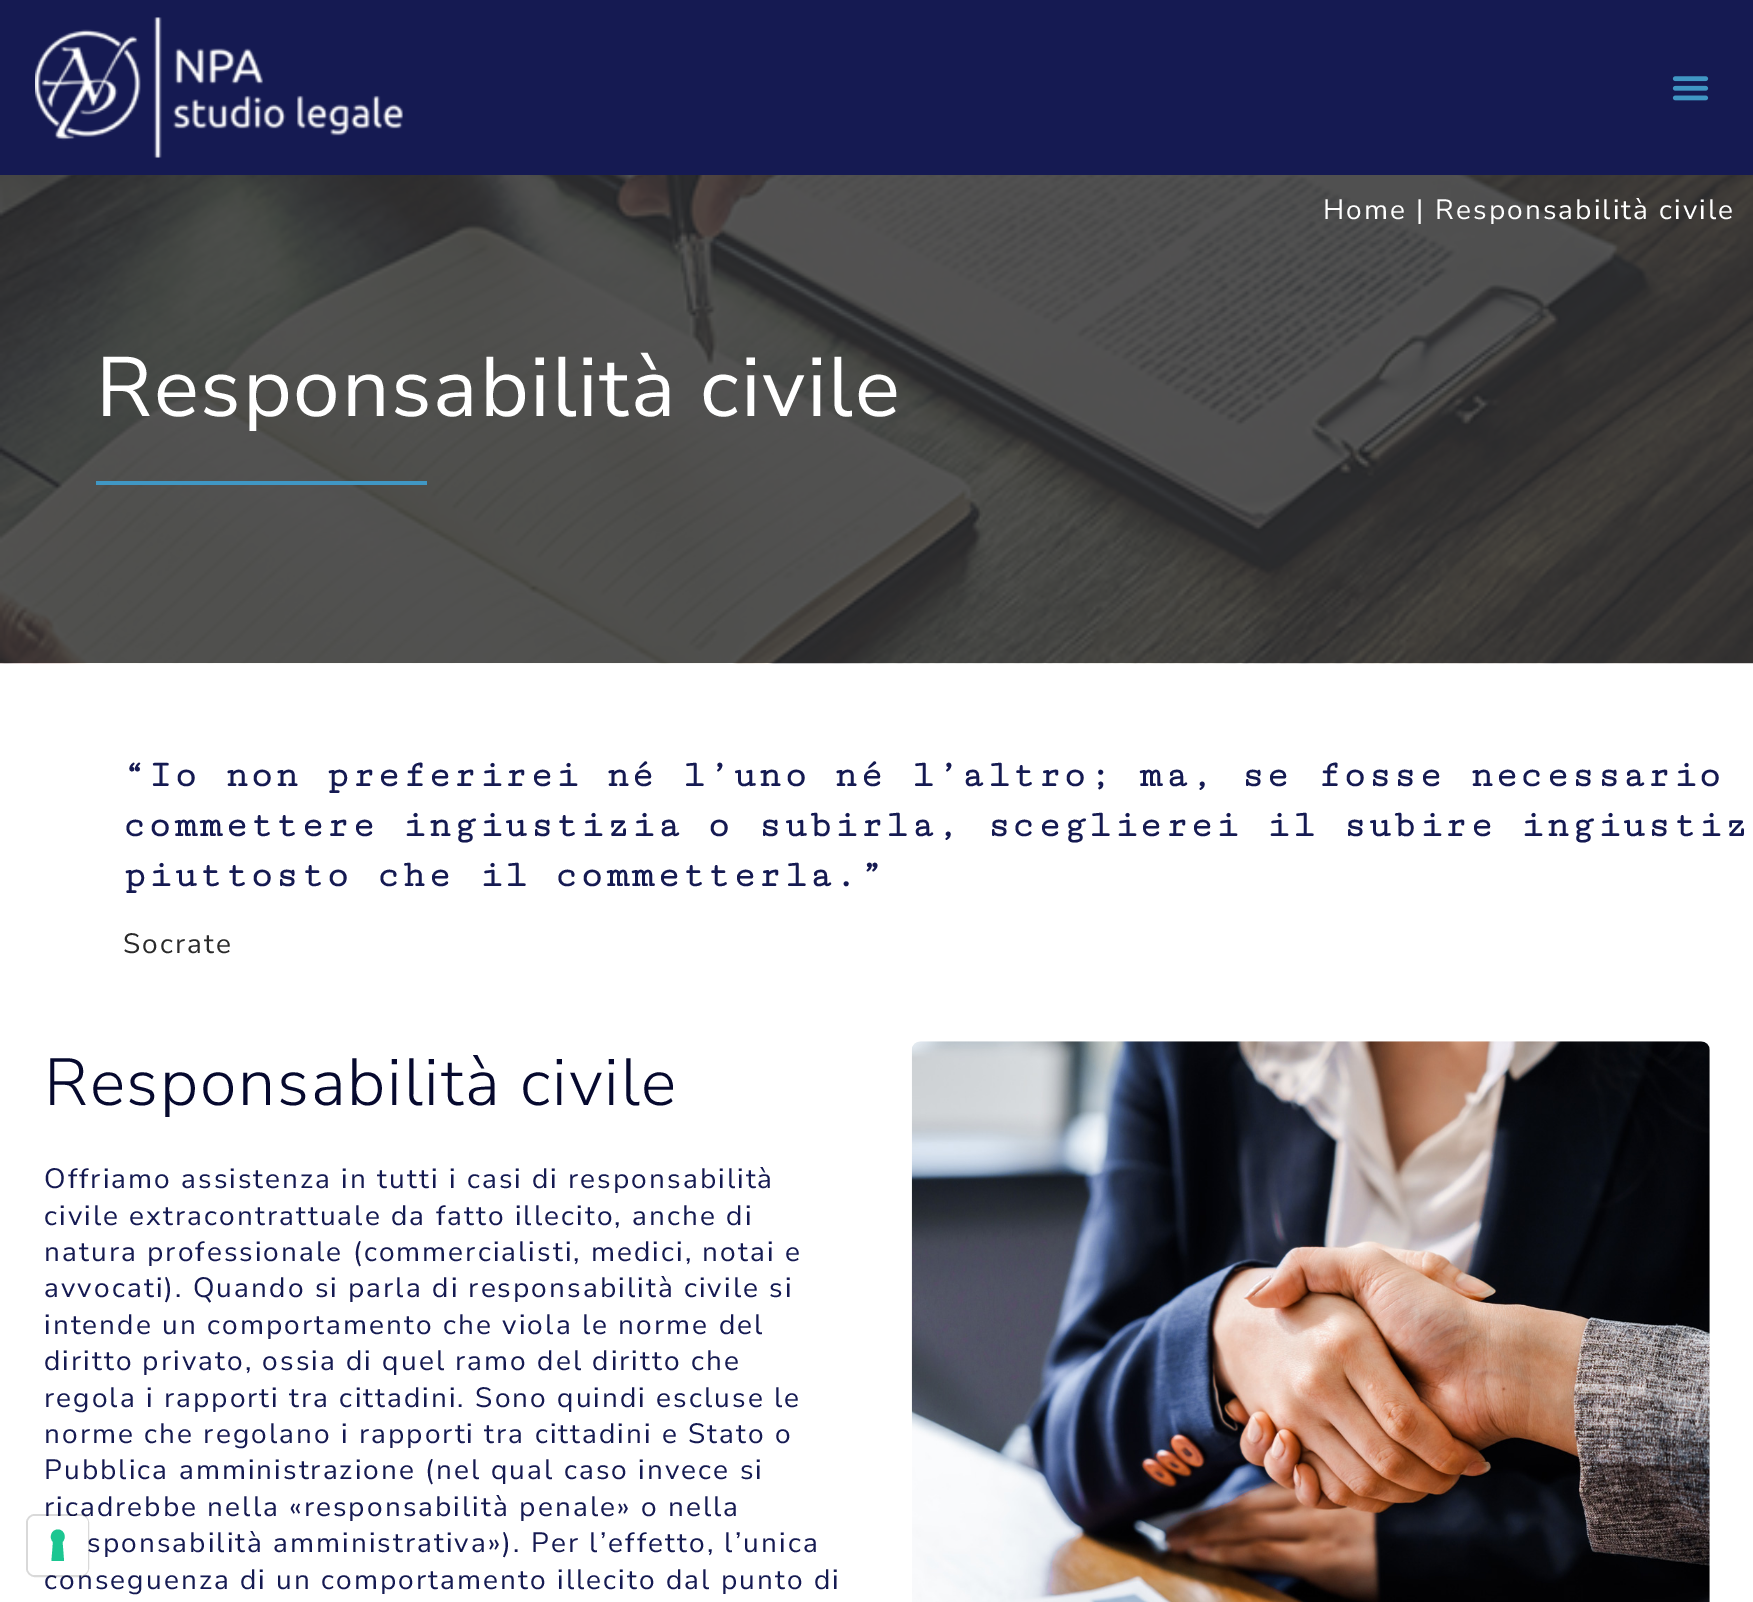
%!PS-Adobe-3.0
%%BoundingBox: 0 0 1753 1602
%%LanguageLevel: 3
%%Pages: 1
%%EndComments
%%BeginProlog
/setink { 3 { 255 div 3 1 roll } repeat setrgbcolor } def
/usefont { [ exch dup neg 0 0 3 -1 roll 0 0 ] selectfont } def
/fillbox { setink rectfill } def
/setalpha { dup .setfillconstantalpha .setstrokeconstantalpha } def
/rrect { 5 dict begin { /r /h /w /y /x } { exch def } forall
  x r add y moveto x w add y 2 copy h add r arct x w add y h add x 1 index r arct
  x y h add x y r arct x y 2 copy exch w add exch r arct closepath end } def
/drawimage { 5 dict begin { /h /w /y /x /name } { exch def } forall
  gsave x y translate w h scale
  w h 8 [w 0 0 h 0 0] name (r) file false 3 colorimage grestore end } def
%%EndProlog
%%BeginSetup
<< /PageSize [1753 1602] /PageUsesTransparency true >> setpagedevice
%%EndSetup
%%Page: 1 1
0 .pushpdf14devicefilter
0 1602 translate 1 -1 scale
4 setmiterlimit
0 0 1753 1602 255 255 255 fillbox
0 0 1753 175 21 26 82 fillbox
(assets/img1.rgb) 35 17 368 141 drawimage
(assets/img2.rgb) 1672 76 37 25 drawimage
(assets/img3.rgb) 0 175 1753 489 drawimage
/NunitoSans-Regular 28 usefont
255 255 255 setink
1323 219 moveto 2.1 0 (Home | Responsabilità civile) ashow
/NunitoSans-Regular 84 usefont
96 416 moveto 1.75 0 (Responsabilità civile) ashow
96 481 331 4 64 151 196 fillbox
/CutiveMono-Bold 38.5 usefont
21 26 82 setink
123 786 moveto 2.1 0 (“Io non preferirei né l’uno né l’altro; ma, se fosse necessario) ashow
123 836 moveto 2.1 0 (commettere ingiustizia o subirla, sceglierei il subire ingiustiz) ashow
123 886 moveto 2.1 0 (piuttosto che il commetterla.”) ashow
/NunitoSans-Regular 28 usefont
42 42 42 setink
123 953 moveto 2.1 0 (Socrate) ashow
/NunitoSans-Light 66.5 usefont
6 9 46 setink
44 1105 moveto 1.75 0 (Responsabilità civile) ashow
/NunitoSans-Regular 28 usefont
21 26 82 setink
44 1188 moveto 2.1 0 (Offriamo assistenza in tutti i casi di responsabilità) ashow
44 1225 moveto 2.1 0 (civile extracontrattuale da fatto illecito, anche di) ashow
44 1261 moveto 2.1 0 (natura professionale \(commercialisti, medici, notai e) ashow
44 1297 moveto 2.1 0 (avvocati\). Quando si parla di responsabilità civile si) ashow
44 1334 moveto 2.1 0 (intende un comportamento che viola le norme del) ashow
44 1370 moveto 2.1 0 (diritto privato, ossia di quel ramo del diritto che) ashow
44 1407 moveto 2.1 0 (regola i rapporti tra cittadini. Sono quindi escluse le) ashow
44 1443 moveto 2.1 0 (norme che regolano i rapporti tra cittadini e Stato o) ashow
44 1479 moveto 2.1 0 (Pubblica amministrazione \(nel qual caso invece si) ashow
44 1516 moveto 2.1 0 (ricadrebbe nella «responsabilità penale» o nella) ashow
87 1552 moveto 2.1 0 (sponsabilità amministrativa»\). Per l’effetto, l’unica) ashow
44 1589 moveto 2.1 0 (conseguenza di un comportamento illecito dal punto di) ashow
(assets/img4.rgb) 911 1041 799 561 drawimage
0.15 setalpha
0 0 0 setink
2 setlinewidth
27 1515 61 61 8 rrect stroke
1 setalpha
255 255 255 setink
28 1516 60 59 7 rrect fill
28 198 145 setink
58 1529.5 moveto 64 1529.5 67 1537.5 62.5 1542 curveto 64 1561 lineto 51.5 1561 lineto 53 1542 lineto 48.5 1537.5 51.5 1529.5 58 1529.5 curveto closepath eofill
.poppdf14devicefilter showpage
%%EOF
